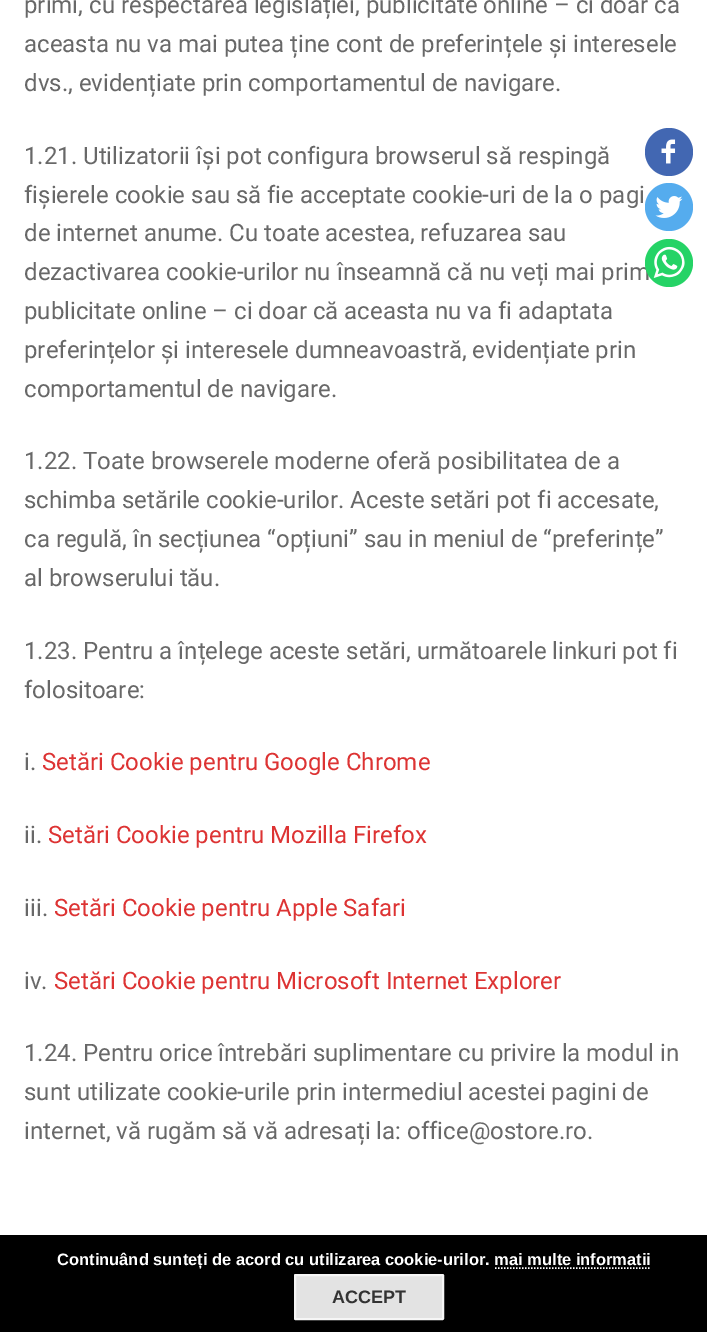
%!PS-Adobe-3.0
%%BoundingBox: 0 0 707 1332
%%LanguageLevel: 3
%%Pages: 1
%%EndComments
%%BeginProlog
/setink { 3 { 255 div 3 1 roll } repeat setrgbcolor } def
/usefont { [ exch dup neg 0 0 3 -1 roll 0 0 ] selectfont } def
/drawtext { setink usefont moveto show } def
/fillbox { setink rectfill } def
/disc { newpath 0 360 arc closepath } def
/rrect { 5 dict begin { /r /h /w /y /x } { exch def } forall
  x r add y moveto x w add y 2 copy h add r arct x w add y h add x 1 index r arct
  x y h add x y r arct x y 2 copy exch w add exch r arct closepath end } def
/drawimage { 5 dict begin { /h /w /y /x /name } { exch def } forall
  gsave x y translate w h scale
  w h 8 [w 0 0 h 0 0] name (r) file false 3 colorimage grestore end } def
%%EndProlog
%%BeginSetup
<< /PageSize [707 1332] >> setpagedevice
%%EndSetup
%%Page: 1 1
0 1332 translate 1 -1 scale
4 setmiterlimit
0 0 707 1332 255 255 255 fillbox
(primi, cu respectarea legislației, publicitate online – ci doar că) 24 13 /Roboto-Regular 24 104 104 104 drawtext
(aceasta nu va mai putea ține cont de preferințele și interesele) 24 52 /Roboto-Regular 24 104 104 104 drawtext
(dvs., evidențiate prin comportamentul de navigare.) 24 91 /Roboto-Regular 24 104 104 104 drawtext
(1.21. Utilizatorii își pot configura browserul să respingă) 24 164 /Roboto-Regular 24 104 104 104 drawtext
(fișierele cookie sau să fie acceptate cookie-uri de la o pagi) 24 203 /Roboto-Regular 24 104 104 104 drawtext
(de internet anume. Cu toate acestea, refuzarea sau) 24 241 /Roboto-Regular 24 104 104 104 drawtext
(dezactivarea cookie-urilor nu înseamnă că nu veți mai prim) 24 280 /Roboto-Regular 24 104 104 104 drawtext
(publicitate online – ci doar că aceasta nu va fi adaptata) 24 319 /Roboto-Regular 24 104 104 104 drawtext
(preferințelor și interesele dumneavoastră, evidențiate prin) 24 358 /Roboto-Regular 24 104 104 104 drawtext
(comportamentul de navigare.) 24 397 /Roboto-Regular 24 104 104 104 drawtext
(1.22. Toate browserele moderne oferă posibilitatea de a) 24 469 /Roboto-Regular 24 104 104 104 drawtext
(schimba setările cookie-urilor. Aceste setări pot fi accesate,) 24 508 /Roboto-Regular 24 104 104 104 drawtext
(ca regulă, în secțiunea “opțiuni” sau in meniul de “preferințe”) 24 547 /Roboto-Regular 24 104 104 104 drawtext
(al browserului tău.) 24 586 /Roboto-Regular 24 104 104 104 drawtext
(1.23. Pentru a înțelege aceste setări, următoarele linkuri pot fi) 24 659 /Roboto-Regular 24 104 104 104 drawtext
(folositoare:) 24 698 /Roboto-Regular 24 104 104 104 drawtext
(i.) 24 770 /Roboto-Regular 24 104 104 104 drawtext
(Setări Cookie pentru Google Chrome) 42 770 /Roboto-Regular 24 221 51 51 drawtext
(ii.) 24 843 /Roboto-Regular 24 104 104 104 drawtext
(Setări Cookie pentru Mozilla Firefox) 48 843 /Roboto-Regular 24 221 51 51 drawtext
(iii.) 24 916 /Roboto-Regular 24 104 104 104 drawtext
(Setări Cookie pentru Apple Safari) 54 916 /Roboto-Regular 24 221 51 51 drawtext
(iv.) 24 989 /Roboto-Regular 24 104 104 104 drawtext
(Setări Cookie pentru Microsoft Internet Explorer) 54 989 /Roboto-Regular 24 221 51 51 drawtext
(1.24. Pentru orice întrebări suplimentare cu privire la modul in) 24 1061 /Roboto-Regular 24 104 104 104 drawtext
(sunt utilizate cookie-urile prin intermediul acestei pagini de) 24 1100 /Roboto-Regular 24 104 104 104 drawtext
(internet, vă rugăm să vă adresați la: office@ostore.ro.) 24 1139 /Roboto-Regular 24 104 104 104 drawtext
66 103 178 setink
669 152 24 disc fill
(assets/img1.rgb) 661 139 15 25 drawimage
85 172 238 setink
669 207 24 disc fill
(assets/img2.rgb) 655 196 28 22 drawimage
37 211 102 setink
669 263 24 disc fill
(assets/img3.rgb) 653 246 32 32 drawimage
0 1235 707 97 0 0 0 fillbox
(Continuând sunteți de acord cu utilizarea cookie-urilor. mai multe informatii) 57 1265 /LiberationSans-Bold 16.5 255 255 255 drawtext
1.5 setlinewidth
[1.5 1.5] 0 setdash
495 1268 moveto 651 1268 lineto stroke
227 227 227 setink
295 1275 148 44 0.5 rrect gsave fill grestore
246 246 246 setink
2 setlinewidth
[] 0 setdash
stroke
(ACCEPT) 332 1303 /LiberationSans-Bold 18 51 51 51 drawtext
showpage
%%EOF
